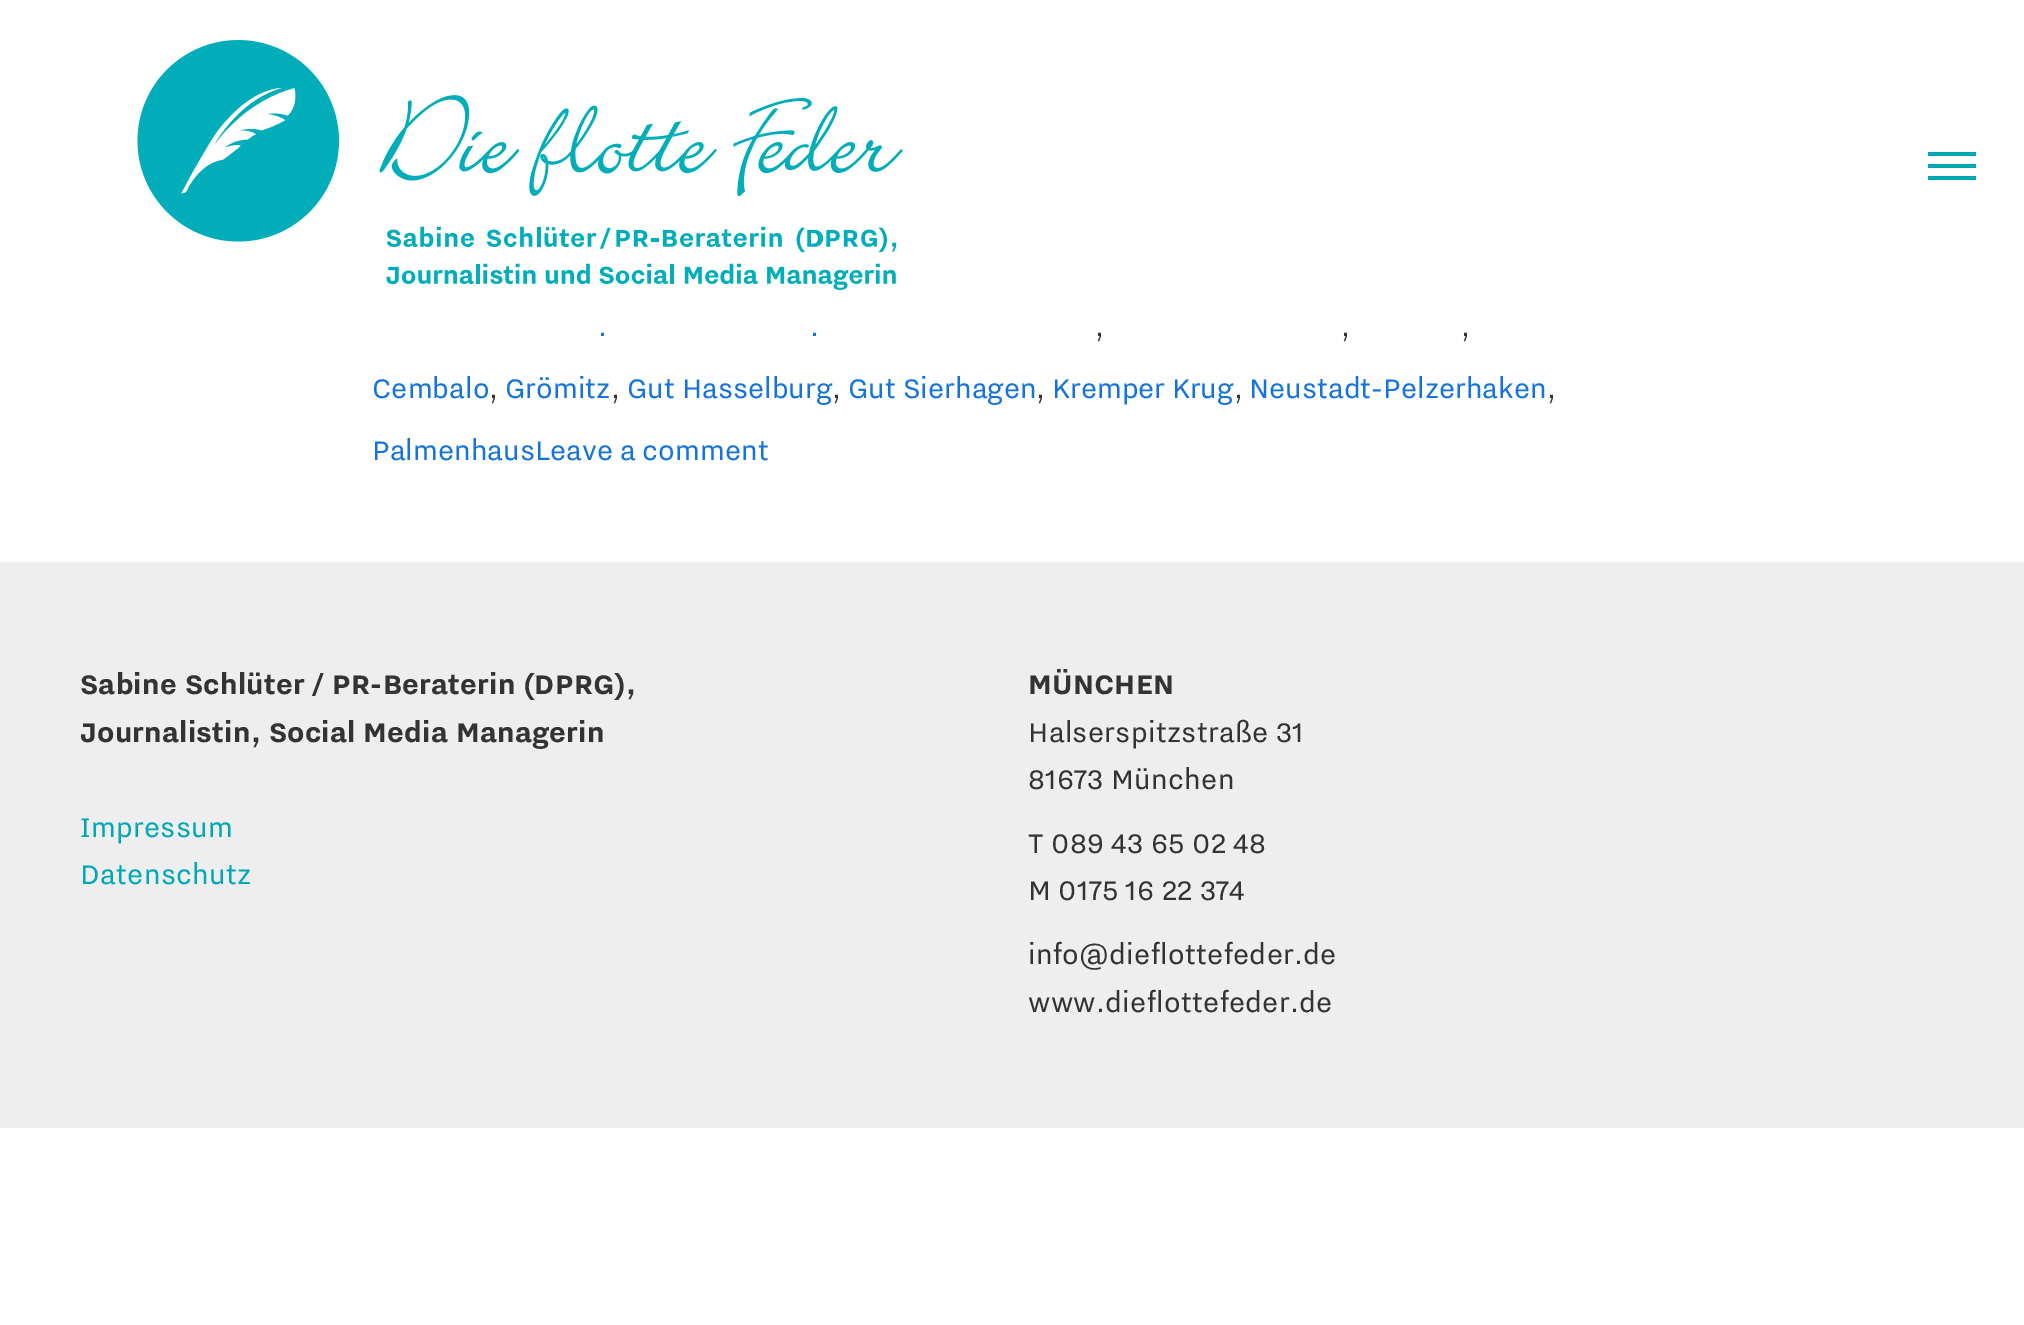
%!PS-Adobe-3.0
%%BoundingBox: 0 0 2024 1325
%%LanguageLevel: 3
%%Pages: 1
%%EndComments
%%BeginProlog
/setink { 3 { 255 div 3 1 roll } repeat setrgbcolor } def
/usefont { [ exch dup neg 0 0 3 -1 roll 0 0 ] selectfont } def
/drawtext { setink usefont moveto show } def
/fillbox { setink rectfill } def
/drawimage { 5 dict begin { /h /w /y /x /name } { exch def } forall
  gsave x y translate w h scale
  w h 8 [w 0 0 h 0 0] name (r) file false 3 colorimage grestore end } def
%%EndProlog
%%BeginSetup
<< /PageSize [2024 1325] >> setpagedevice
%%EndSetup
%%Page: 1 1
0 1325 translate 1 -1 scale
4 setmiterlimit
0 0 2024 1325 255 255 255 fillbox
(assets/img1.rgb) 137 40 766 250 drawimage
1928 164 48 4 0 167 181 fillbox
1928 152 48 4 0 167 181 fillbox
1928 176 48 4 0 167 181 fillbox
(.) 598 336 /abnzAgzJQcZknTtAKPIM-Regular 34 21 115 221 drawtext
(.) 810 336 /abnzAgzJQcZknTtAKPIM-Regular 34 21 115 221 drawtext
(,) 1095 336 /abnzAgzJQcZknTtAKPIM-Regular 34 51 51 51 drawtext
(,) 1341 336 /abnzAgzJQcZknTtAKPIM-Regular 34 51 51 51 drawtext
(,) 1461 336 /abnzAgzJQcZknTtAKPIM-Regular 34 51 51 51 drawtext
(Cembalo) 372 398 /abnzAgzJQcZknTtAKPIM-Regular 34 21 115 221 drawtext
(,) 489 398 /abnzAgzJQcZknTtAKPIM-Regular 34 51 51 51 drawtext
(Grömitz) 505 398 /abnzAgzJQcZknTtAKPIM-Regular 34 21 115 221 drawtext
(,) 611 398 /abnzAgzJQcZknTtAKPIM-Regular 34 51 51 51 drawtext
(Gut Hasselburg) 627 398 /abnzAgzJQcZknTtAKPIM-Regular 34 21 115 221 drawtext
(,) 832 398 /abnzAgzJQcZknTtAKPIM-Regular 34 51 51 51 drawtext
(Gut Sierhagen) 848 398 /abnzAgzJQcZknTtAKPIM-Regular 34 21 115 221 drawtext
(,) 1036 398 /abnzAgzJQcZknTtAKPIM-Regular 34 51 51 51 drawtext
(Kremper Krug) 1052 398 /abnzAgzJQcZknTtAKPIM-Regular 34 21 115 221 drawtext
(,) 1234 398 /abnzAgzJQcZknTtAKPIM-Regular 34 51 51 51 drawtext
(Neustadt-Pelzerhaken) 1249 398 /abnzAgzJQcZknTtAKPIM-Regular 34 21 115 221 drawtext
(,) 1547 398 /abnzAgzJQcZknTtAKPIM-Regular 34 51 51 51 drawtext
(PalmenhausLeave a comment) 372 460 /abnzAgzJQcZknTtAKPIM-Regular 34 21 115 221 drawtext
0 562 2024 566 238 238 238 fillbox
/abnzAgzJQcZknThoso-Bold 34 usefont
51 51 51 setink
80 694 moveto 0.3 0 (Sabine Schlüter / PR-Beraterin \(DPRG\),) ashow
80 742 moveto 0.3 0 (Journalistin, Social Media Managerin) ashow
/abnzAgzJQcZknTtAKPIM-Regular 34 usefont
0 167 181 setink
80 837 moveto 0.3 0 (Impressum) ashow
80 884 moveto 0.3 0 (Datenschutz) ashow
/abnzAgzJQcZknThoso-Bold 34 usefont
51 51 51 setink
1028 694 moveto 0.3 0 (MÜNCHEN) ashow
/abnzAgzJQcZknTtAKPIM-Regular 34 usefont
1028 742 moveto 0.3 0 (Halserspitzstraße 31) ashow
1028 789 moveto 0.3 0 (81673 München) ashow
1028 853 moveto 0.3 0 (T 089 43 65 02 48) ashow
1028 900 moveto 0.3 0 (M 0175 16 22 374) ashow
1028 964 moveto 0.3 0 (info@dieflottefeder.de) ashow
1028 1012 moveto 0.3 0 (www.dieflottefeder.de) ashow
showpage
%%EOF
